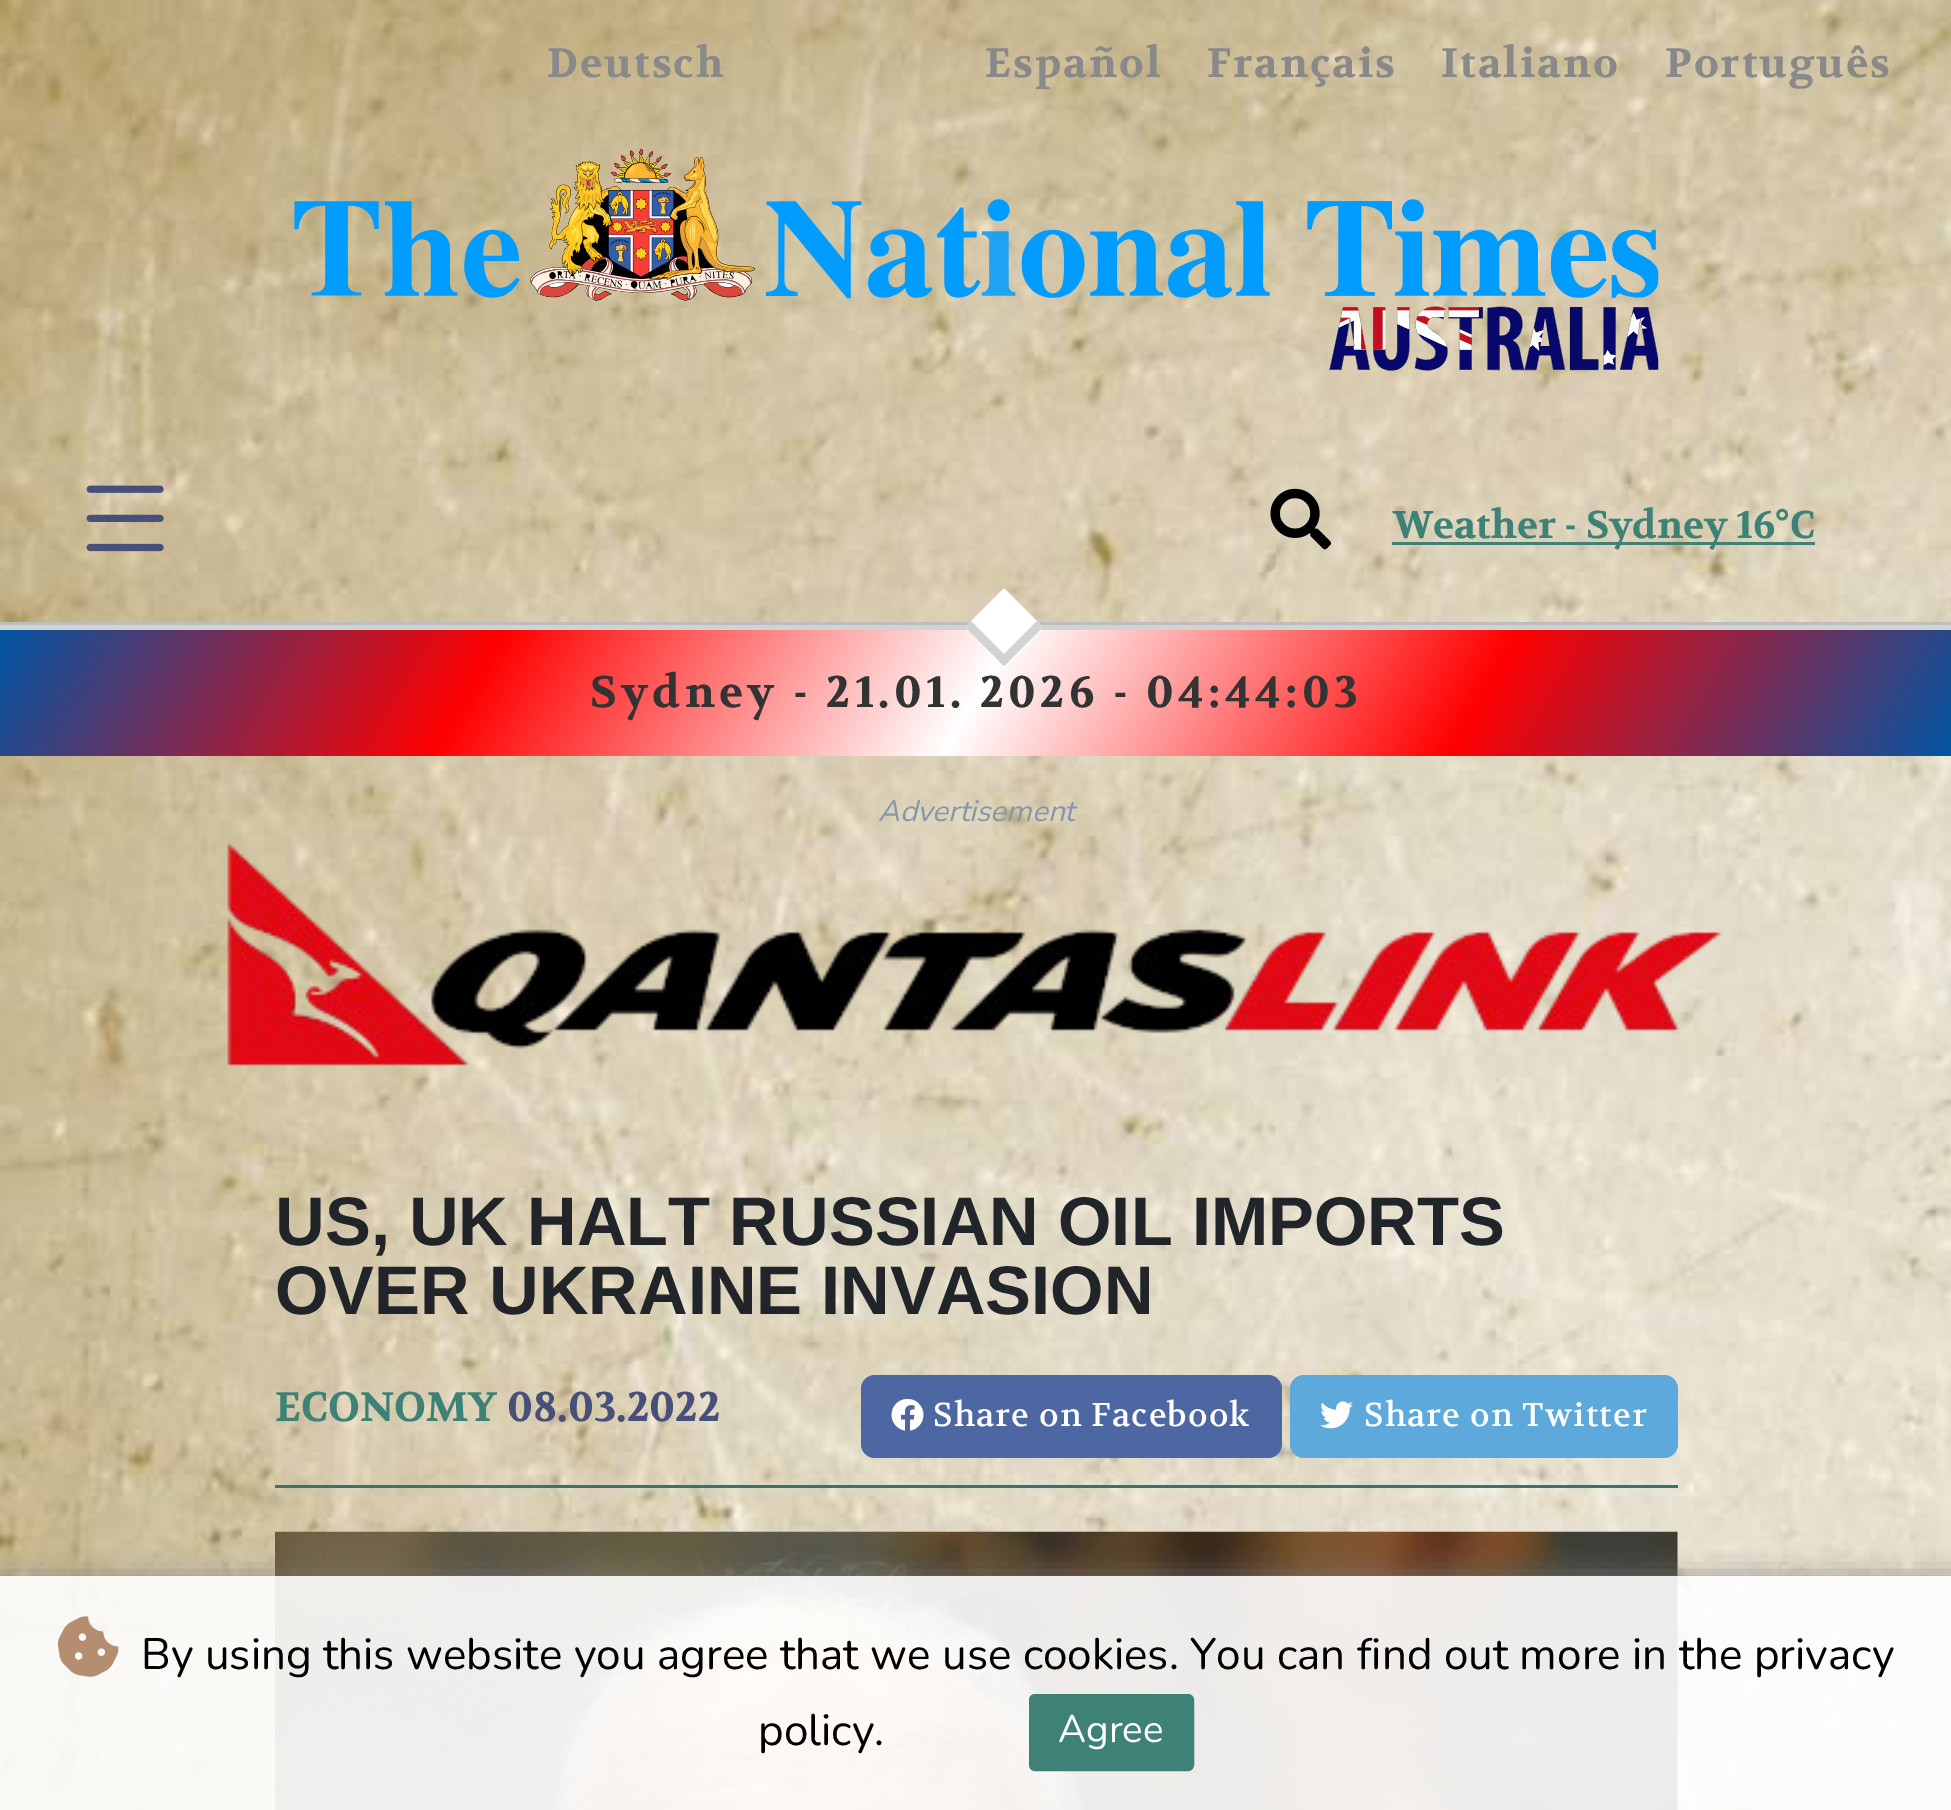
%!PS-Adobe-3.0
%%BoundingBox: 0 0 1951 1810
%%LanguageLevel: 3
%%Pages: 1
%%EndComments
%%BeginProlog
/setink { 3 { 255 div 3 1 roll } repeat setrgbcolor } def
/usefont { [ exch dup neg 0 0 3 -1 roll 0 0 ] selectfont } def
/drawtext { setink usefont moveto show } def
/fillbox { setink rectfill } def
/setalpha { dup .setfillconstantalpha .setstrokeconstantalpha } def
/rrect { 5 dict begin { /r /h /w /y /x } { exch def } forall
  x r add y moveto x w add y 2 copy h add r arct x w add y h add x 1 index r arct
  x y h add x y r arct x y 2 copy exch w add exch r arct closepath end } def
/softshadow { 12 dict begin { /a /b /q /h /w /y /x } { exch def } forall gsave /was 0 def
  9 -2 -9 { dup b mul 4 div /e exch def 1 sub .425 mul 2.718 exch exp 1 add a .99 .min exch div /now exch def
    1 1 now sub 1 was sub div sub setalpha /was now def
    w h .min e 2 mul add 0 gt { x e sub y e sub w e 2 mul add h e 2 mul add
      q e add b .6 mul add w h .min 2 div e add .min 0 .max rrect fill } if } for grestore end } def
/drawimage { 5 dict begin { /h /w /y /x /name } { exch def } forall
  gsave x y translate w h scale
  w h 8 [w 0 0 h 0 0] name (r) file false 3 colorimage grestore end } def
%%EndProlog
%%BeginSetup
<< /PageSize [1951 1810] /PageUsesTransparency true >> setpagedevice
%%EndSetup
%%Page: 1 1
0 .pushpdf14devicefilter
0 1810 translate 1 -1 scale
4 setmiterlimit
0 0 1951 1810 255 255 255 fillbox
(assets/img1.rgb) 0 0 1951 1810 drawimage
(assets/img2.rgb) 19 0 1807 1 drawimage
/Volkhov-Bold 41.25 usefont
137 137 137 setink
547 77 moveto 2 0 (Deutsch) ashow
985 77 moveto 2 0 (Español) ashow
1207 77 moveto 2 0 (Français) ashow
1441 77 moveto 2 0 (Italiano) ashow
1665 77 moveto 2 0 (Português) ashow
(assets/img3.rgb) 294 148 1365 223 drawimage
(assets/img4.rgb) 86 485 78 67 drawimage
(assets/img5.rgb) 1270 488 61 62 drawimage
1392 542 423 3 62 129 119 fillbox
(Weather - Sydney 16°C) 1393 538 /Volkhov-Bold 38.5 62 129 119 drawtext
0 625 1951 5 209 210 210 fillbox
0 622 1951 3 188 189 189 fillbox
gsave 0 630 moveto 1951 630 lineto 1951 756 lineto 0 756 lineto closepath clip newpath
<< /ShadingType 2 /ColorSpace /DeviceRGB /Coords [217 254 1736 1132] /Extend [true true] /Function << /FunctionType 3 /Domain [0 1] /Functions [<< /FunctionType 2 /Domain [0 1] /C0 [0 0.333 0.643] /C1 [1 0 0] /N 1 >> << /FunctionType 2 /Domain [0 1] /C0 [1 0 0] /C1 [1 1 1] /N 1 >> << /FunctionType 2 /Domain [0 1] /C0 [1 1 1] /C1 [1 0 0] /N 1 >> << /FunctionType 2 /Domain [0 1] /C0 [1 0 0] /C1 [0 0.333 0.643] /N 1 >>] /Bounds [0.25 0.5 0.75] /Encode [0 1 0 1 0 1 0 1] >> >> shfill grestore
255 255 255 setink
1043 627 moveto 1004 666 lineto 965 627 lineto 1004 588 lineto closepath fill
209 210 210 setink
1043 627 moveto 1004 666 lineto 998 660 lineto 1037 621 lineto closepath fill
1010 660 moveto 1004 666 lineto 965 627 lineto 971 621 lineto closepath fill
/Volkhov-Bold 44 usefont
51 51 51 setink
590 707 moveto 4.4 0 (Sydney - 21.01. 2026 - 04:44:03) ashow
(Advertisement) 878 821 /Nunito-ExtraLightItalic 29.75 134 149 171 drawtext
(assets/img6.rgb) 227 843 1496 223 drawimage
(US, UK HALT RUSSIAN OIL IMPORTS) 275 1245 /LiberationSans-Bold 68.75 33 37 41 drawtext
(OVER UKRAINE INVASION) 275 1314 /LiberationSans-Bold 68.75 33 37 41 drawtext
(ECONOMY) 275 1421 /Volkhov-Bold 41.25 62 129 119 drawtext
(08.03.2022) 507 1421 /Volkhov-Bold 41.25 72 79 120 drawtext
76 103 161 setink
861 1375 421 83 14 rrect fill
(assets/img7.rgb) 891 1398 33 33 drawimage
/Volkhov-Regular 33 usefont
255 255 255 setink
933 1426 moveto 1.1 0 (Share on Facebook) ashow
94 169 220 setink
1290 1375 388 83 14 rrect fill
(assets/img8.rgb) 1320 1401 33 28 drawimage
255 255 255 setink
1364 1426 moveto 1.1 0 (Share on Twitter) ashow
275 1485 1403 3 56 116 107 fillbox
(assets/img9.rgb) 275 1531 1403 279 drawimage
gsave
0 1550 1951 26 rectclip
121 121 121 setink
-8 1579 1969 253 0 14 1 softshadow
grestore
0.9 setalpha
0 1576 1951 234 255 255 255 fillbox
1 setalpha
(assets/img10.rgb) 57 1616 62 61 drawimage
(By using this website you agree that we use cookies. You can find out more in the privacy) 141 1669 /Nunito-ExtraLight 44 0 0 0 drawtext
(policy.) 758 1745 /Nunito-ExtraLight 44 0 0 0 drawtext
62 129 119 setink
1030.5 1695.5 162 74 4.5 rrect gsave fill grestore
3 setlinewidth
stroke
(Agree) 1058 1742 /Nunito-ExtraLight 38.5 255 255 255 drawtext
.poppdf14devicefilter showpage
%%EOF
